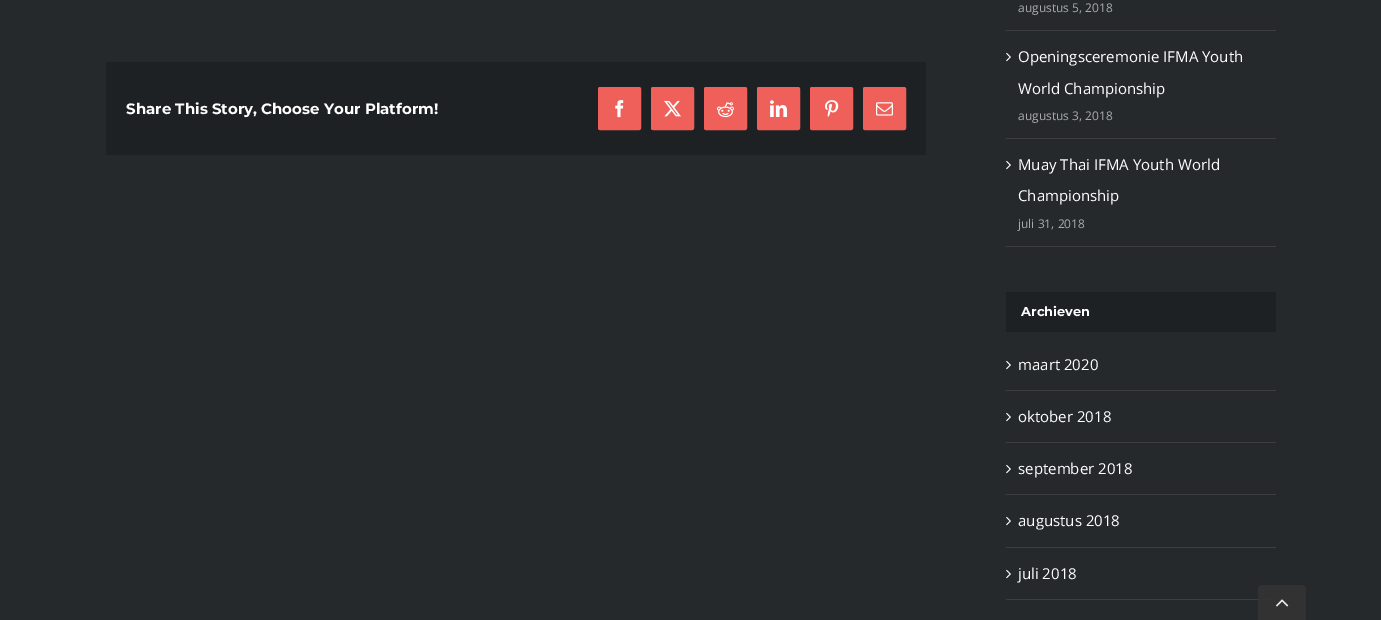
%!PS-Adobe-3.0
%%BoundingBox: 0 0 1381 620
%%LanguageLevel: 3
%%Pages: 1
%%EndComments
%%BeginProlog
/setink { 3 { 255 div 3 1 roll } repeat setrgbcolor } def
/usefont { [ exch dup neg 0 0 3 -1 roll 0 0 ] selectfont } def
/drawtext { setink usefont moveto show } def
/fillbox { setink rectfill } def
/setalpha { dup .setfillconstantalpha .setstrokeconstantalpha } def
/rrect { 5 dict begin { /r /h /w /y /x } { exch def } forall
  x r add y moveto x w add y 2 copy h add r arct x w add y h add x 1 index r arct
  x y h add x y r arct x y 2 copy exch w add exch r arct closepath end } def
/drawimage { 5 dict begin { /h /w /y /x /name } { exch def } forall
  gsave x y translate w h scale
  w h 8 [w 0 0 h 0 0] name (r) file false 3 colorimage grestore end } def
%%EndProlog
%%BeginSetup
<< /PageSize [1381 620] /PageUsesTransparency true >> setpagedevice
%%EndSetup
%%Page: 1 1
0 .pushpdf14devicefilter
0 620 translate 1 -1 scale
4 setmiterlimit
0 0 1381 620 37 41 43 fillbox
106 62 820 93 30 33 35 fillbox
(Share This Story, Choose Your Platform!) 126 114 /Montserrat-Bold 15 255 255 255 drawtext
238 96 89 setink
598.5 87.5 42 42 1.5 rrect gsave fill grestore
stroke
(assets/img1.rgb) 615 100 9 18 drawimage
651.5 87.5 42 42 1.5 rrect gsave fill grestore
stroke
(assets/img2.rgb) 664 100 17 17 drawimage
704.5 87.5 42 42 1.5 rrect gsave fill grestore
stroke
(assets/img3.rgb) 717 102 17 16 drawimage
757.5 87.5 42 42 1.5 rrect gsave fill grestore
stroke
(assets/img4.rgb) 770 100 17 17 drawimage
810.5 87.5 42 42 1.5 rrect gsave fill grestore
stroke
(assets/img5.rgb) 825 100 14 17 drawimage
863.5 87.5 42 42 1.5 rrect gsave fill grestore
stroke
(assets/img6.rgb) 876 102 17 14 drawimage
1006 30 270 1 62 62 62 fillbox
(augustus 5, 2018) 1018 12 /OpenSans-Regular 12 170 169 169 drawtext
1006 138 270 1 62 62 62 fillbox
(assets/img7.rgb) 1006 52 5 10 drawimage
(Openingsceremonie IFMA Youth) 1018 62 /OpenSans-Regular 15 255 255 255 drawtext
(World Championship) 1018 94 /OpenSans-Regular 15 255 255 255 drawtext
(augustus 3, 2018) 1018 120 /OpenSans-Regular 12 170 169 169 drawtext
1006 246 270 1 62 62 62 fillbox
(assets/img7.rgb) 1006 160 5 10 drawimage
(Muay Thai IFMA Youth World) 1018 170 /OpenSans-Regular 15 255 255 255 drawtext
(Championship) 1018 201 /OpenSans-Regular 15 255 255 255 drawtext
(juli 31, 2018) 1018 228 /OpenSans-Regular 12 170 169 169 drawtext
1006 292 270 40 30 33 35 fillbox
(Archieven) 1021 316 /Montserrat-Bold 13 255 255 255 drawtext
1006 390 270 1 62 62 62 fillbox
(assets/img7.rgb) 1006 360 5 10 drawimage
(maart 2020) 1018 370 /OpenSans-Regular 15 255 255 255 drawtext
1006 442 270 1 62 62 62 fillbox
(assets/img7.rgb) 1006 412 5 10 drawimage
(oktober 2018) 1018 422 /OpenSans-Regular 15 255 255 255 drawtext
1006 494 270 1 62 62 62 fillbox
(assets/img7.rgb) 1006 464 5 10 drawimage
(september 2018) 1018 474 /OpenSans-Regular 15 255 255 255 drawtext
1006 547 270 1 62 62 62 fillbox
(assets/img7.rgb) 1006 516 5 10 drawimage
(augustus 2018) 1018 526 /OpenSans-Regular 15 255 255 255 drawtext
1006 599 270 1 62 62 62 fillbox
(assets/img7.rgb) 1006 569 5 10 drawimage
(juli 2018) 1018 579 /OpenSans-Regular 15 255 255 255 drawtext
0.9 setalpha
51 51 51 setink
1262 585 moveto 1302 585 lineto 1304 585 1306 587 1306 589 curveto 1306 620 lineto 1258 620 lineto 1258 589 lineto 1258 587 1260 585 1262 585 curveto closepath fill
1 setalpha
(assets/img8.rgb) 1276 599 13 8 drawimage
.poppdf14devicefilter showpage
%%EOF
